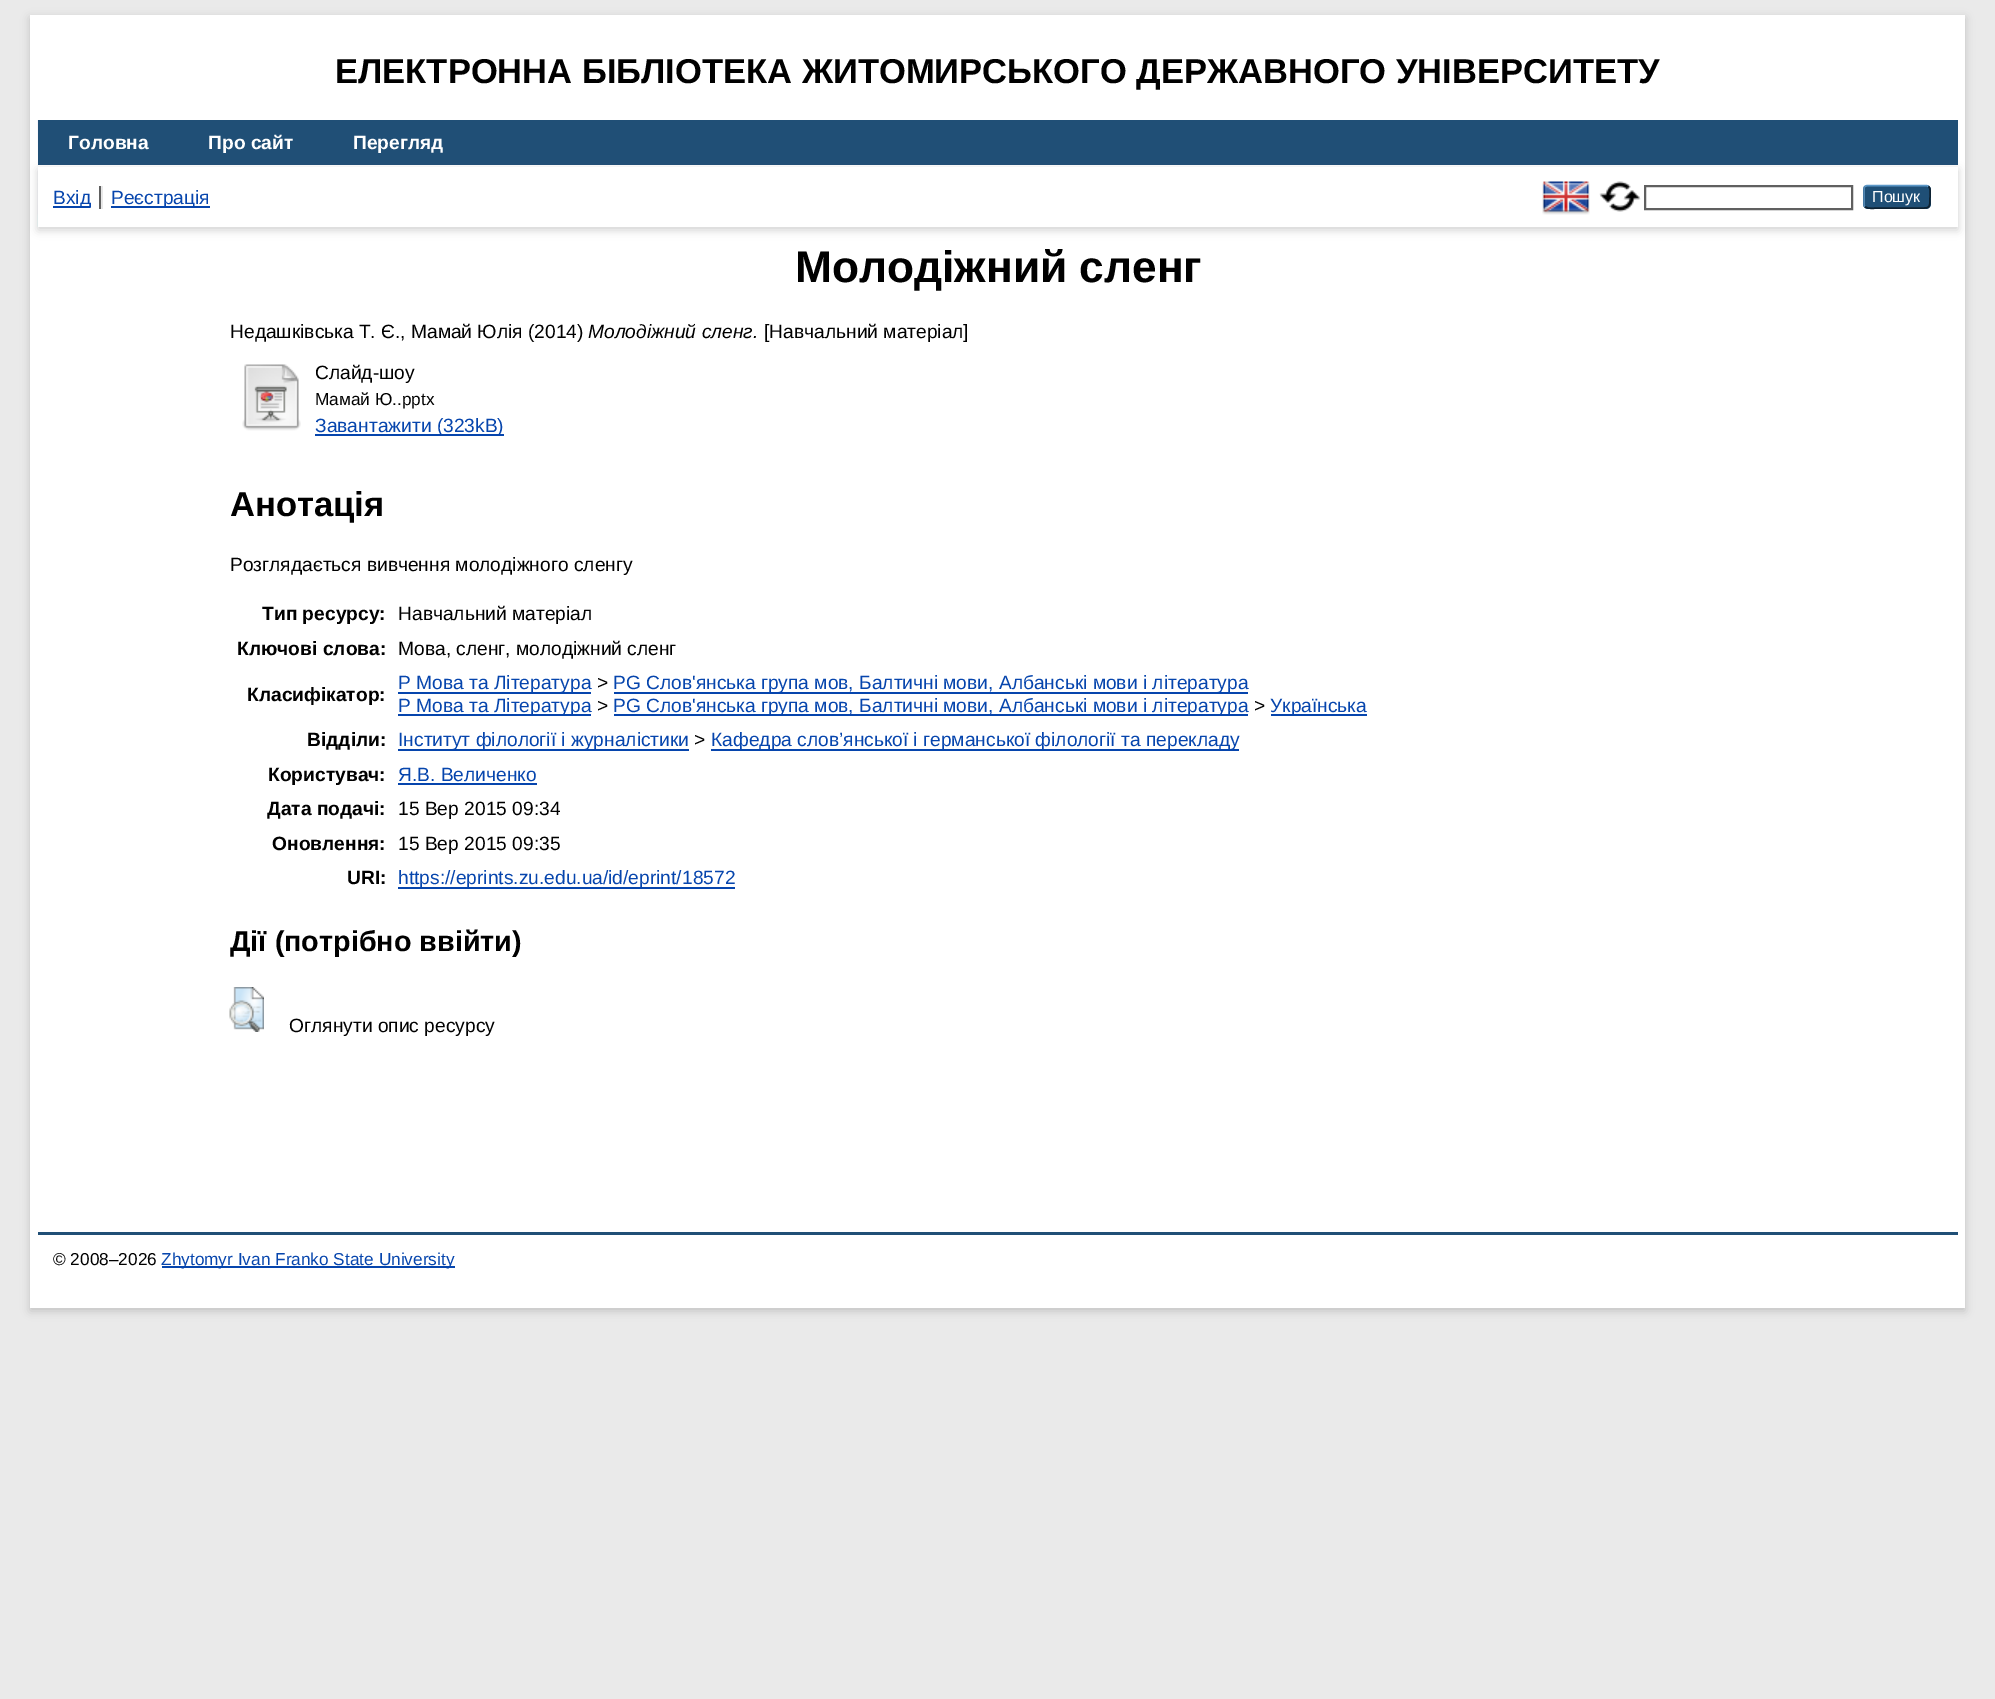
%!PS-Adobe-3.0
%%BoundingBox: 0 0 1995 1699
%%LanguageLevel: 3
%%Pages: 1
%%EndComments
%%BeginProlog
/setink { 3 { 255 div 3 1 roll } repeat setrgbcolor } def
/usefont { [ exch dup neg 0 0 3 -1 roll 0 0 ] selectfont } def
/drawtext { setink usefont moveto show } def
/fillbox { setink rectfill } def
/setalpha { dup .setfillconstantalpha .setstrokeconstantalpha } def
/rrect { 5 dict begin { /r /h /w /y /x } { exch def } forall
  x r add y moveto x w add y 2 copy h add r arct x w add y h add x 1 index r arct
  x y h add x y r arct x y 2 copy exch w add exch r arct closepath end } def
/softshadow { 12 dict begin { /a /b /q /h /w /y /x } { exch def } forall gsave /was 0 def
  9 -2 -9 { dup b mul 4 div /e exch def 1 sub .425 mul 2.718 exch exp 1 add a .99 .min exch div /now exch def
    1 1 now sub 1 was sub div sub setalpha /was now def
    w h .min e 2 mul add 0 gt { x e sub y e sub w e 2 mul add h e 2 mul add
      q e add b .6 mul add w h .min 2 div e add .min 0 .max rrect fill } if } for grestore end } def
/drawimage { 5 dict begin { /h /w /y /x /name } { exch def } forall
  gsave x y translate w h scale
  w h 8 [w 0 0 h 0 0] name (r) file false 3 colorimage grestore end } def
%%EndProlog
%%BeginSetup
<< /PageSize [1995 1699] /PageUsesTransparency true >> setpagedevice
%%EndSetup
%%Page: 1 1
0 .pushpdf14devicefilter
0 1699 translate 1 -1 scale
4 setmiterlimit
0 0 1995 1699 234 234 234 fillbox
100 100 100 setink
30 18 1935 1293 0 4.5 0.3 softshadow
30 15 1935 1293 255 255 255 fillbox
(ЕЛЕКТРОННА БІБЛІОТЕКА ЖИТОМИРСЬКОГО ДЕРЖАВНОГО УНІВЕРСИТЕТУ) 335 83 /LiberationSans-Bold 34.55 0 0 0 drawtext
(assets/img1.rgb) 37 120 1 107 drawimage
38 120 1920 45 32 79 118 fillbox
(Головна) 68 149 /LiberationSans-Bold 19.2 255 255 255 drawtext
(Про сайт) 208 149 /LiberationSans-Bold 19.2 255 255 255 drawtext
(Перегляд) 353 149 /LiberationSans-Bold 19.2 255 255 255 drawtext
100 100 100 setink
38 170 1920 60 0 4.5 0.3 softshadow
38 167 1920 60 255 255 255 fillbox
99 186 2 23 96 96 96 fillbox
53 206 37 2 6 69 173 fillbox
(Вхід) 53 204 /LiberationSans-Regular 19.2 6 69 173 drawtext
101 186 2 23 232 232 232 fillbox
111 206 99 2 6 69 173 fillbox
(Реєстрація) 111 204 /LiberationSans-Regular 19.2 6 69 173 drawtext
(assets/img2.rgb) 1542 181 48 34 drawimage
(assets/img3.rgb) 1599 181 42 31 drawimage
96 96 96 setink
2 setlinewidth
1645 186 207 23 rectstroke
31 79 118 setink
1863 185 68 24 5 rrect fill
91 151 199 setink
1.5 setlinewidth
1865 186.5 moveto 1867 185.5 lineto 1926.5 185.5 lineto 1928.5 186.5 lineto stroke
13 33 49 setink
1928.5 186.5 moveto 1931 188.5 1930 193.5 1930 196.5 curveto 1930 209.5 1930 208 1916 208 curveto 1877 208 lineto 1876.5 208 1867.5 209.5 1865 206.5 curveto stroke
82 135 179 setink
1865 206.5 moveto 1864 206 1864 205 1864 204 curveto 1864 189 lineto 1864 188 1864 187 1865 186.5 curveto stroke
(Пошук) 1872 202 /LiberationSans-Regular 16 255 255 255 drawtext
(Молодіжний сленг) 795 282 /LiberationSans-Bold 44.25 0 0 0 drawtext
(Недашківська Т. Є., Мамай Юлія \(2014\)) 230 338 /LiberationSans-Regular 19.2 0 0 0 drawtext
(Молодіжний сленг.) 588 338 /LiberationSans-Italic 19.2 0 0 0 drawtext
([Навчальний матеріал]) 764 338 /LiberationSans-Regular 19.2 0 0 0 drawtext
(assets/img4.rgb) 242 364 59 67 drawimage
(Слайд-шоу) 315 379 /LiberationSans-Regular 19.2 0 0 0 drawtext
(Мамай Ю..pptx) 315 405 /LiberationSans-Regular 17.25 0 0 0 drawtext
315 434 189 2 6 69 173 fillbox
(Завантажити \(323kB\)) 315 432 /LiberationSans-Regular 19.2 6 69 173 drawtext
(Анотація) 230 516 /LiberationSans-Bold 34.55 0 0 0 drawtext
(Розглядається вивчення молодіжного сленгу) 230 571 /LiberationSans-Regular 19.2 0 0 0 drawtext
(Тип ресурсу:) 262 620 /LiberationSans-Bold 19.2 0 0 0 drawtext
(Навчальний матеріал) 398 620 /LiberationSans-Regular 19.2 0 0 0 drawtext
(Ключові слова:) 237 655 /LiberationSans-Bold 19.2 0 0 0 drawtext
(Мова, сленг, молодіжний сленг) 398 655 /LiberationSans-Regular 19.2 0 0 0 drawtext
(Класифікатор:) 247 701 /LiberationSans-Bold 19.2 0 0 0 drawtext
398 692 193 2 6 69 173 fillbox
(P Мова та Література) 398 689 /LiberationSans-Regular 19.2 6 69 173 drawtext
(>) 597 689 /LiberationSans-Regular 19.2 0 0 0 drawtext
614 692 634 2 6 69 173 fillbox
(PG Слов'янська група мов, Балтичні мови, Албанські мови і література) 613 689 /LiberationSans-Regular 19.2 6 69 173 drawtext
398 714 193 2 6 69 173 fillbox
(P Мова та Література) 398 712 /LiberationSans-Regular 19.2 6 69 173 drawtext
(>) 597 712 /LiberationSans-Regular 19.2 0 0 0 drawtext
614 714 634 2 6 69 173 fillbox
(PG Слов'янська група мов, Балтичні мови, Албанські мови і література) 613 712 /LiberationSans-Regular 19.2 6 69 173 drawtext
(>) 1254 712 /LiberationSans-Regular 19.2 0 0 0 drawtext
1271 714 96 2 6 69 173 fillbox
(Українська) 1270 712 /LiberationSans-Regular 19.2 6 69 173 drawtext
(Відділи:) 307 746 /LiberationSans-Bold 19.2 0 0 0 drawtext
398 749 291 2 6 69 173 fillbox
(Інститут філології і журналістики) 398 746 /LiberationSans-Regular 19.2 6 69 173 drawtext
(>) 694 746 /LiberationSans-Regular 19.2 0 0 0 drawtext
711 749 528 2 6 69 173 fillbox
(Кафедра слов’янської і германської філології та перекладу) 711 746 /LiberationSans-Regular 19.2 6 69 173 drawtext
(Користувач:) 268 781 /LiberationSans-Bold 19.2 0 0 0 drawtext
(Я.В. Величенко) 398 781 /LiberationSans-Regular 19.2 6 69 173 drawtext
398 783 139 2 6 69 173 fillbox
(Дата подачі:) 267 815 /LiberationSans-Bold 19.2 0 0 0 drawtext
(15 Вер 2015 09:34) 398 815 /LiberationSans-Regular 19.2 0 0 0 drawtext
(Оновлення:) 272 850 /LiberationSans-Bold 19.2 0 0 0 drawtext
(15 Вер 2015 09:35) 398 850 /LiberationSans-Regular 19.2 0 0 0 drawtext
(URI:) 347 884 /LiberationSans-Bold 19.2 0 0 0 drawtext
398 887 337 2 6 69 173 fillbox
(https://eprints.zu.edu.ua/id/eprint/18572) 398 884 /LiberationSans-Regular 19.2 6 69 173 drawtext
(Дії \(потрібно ввійти\)) 230 951 /LiberationSans-Bold 28.75 0 0 0 drawtext
(assets/img5.rgb) 229 987 35 45 drawimage
(Оглянути опис ресурсу) 289 1032 /LiberationSans-Regular 19.2 0 0 0 drawtext
38 1232 1920 3 32 79 118 fillbox
(© 2008–2026) 53 1265 /LiberationSans-Regular 17.25 0 0 0 drawtext
162 1266 293 2 6 69 173 fillbox
(Zhytomyr Ivan Franko State University) 161 1265 /LiberationSans-Regular 17.25 6 69 173 drawtext
.poppdf14devicefilter showpage
%%EOF
